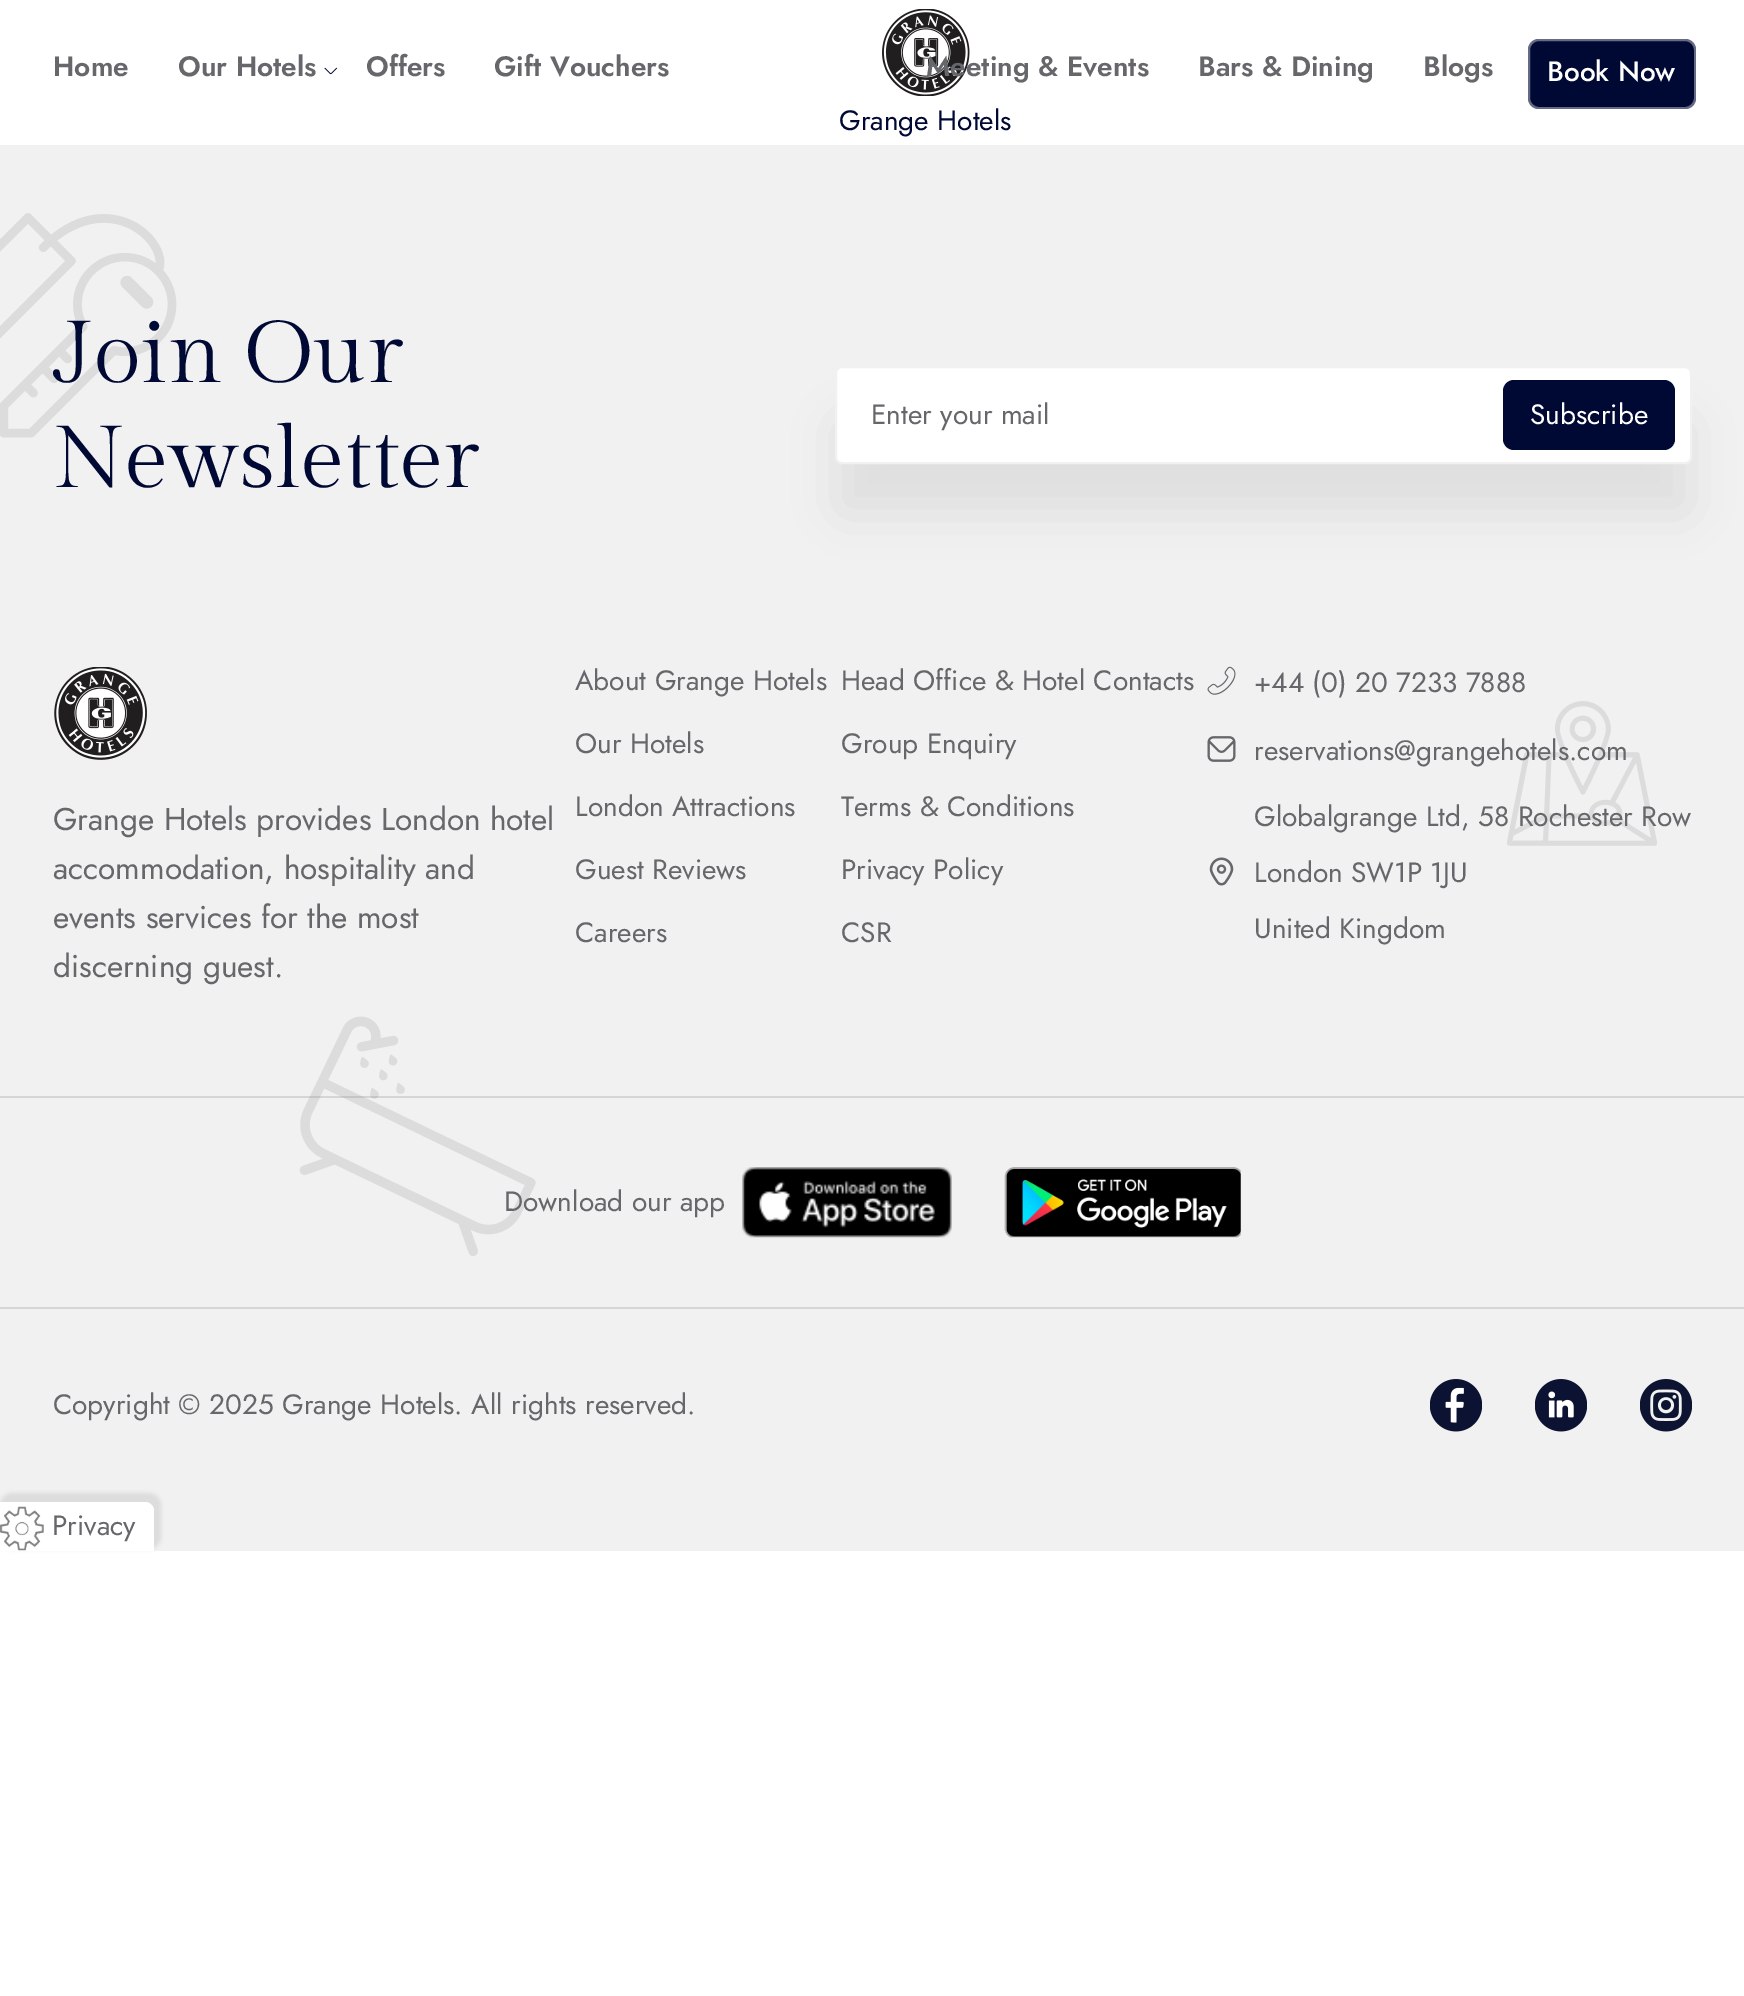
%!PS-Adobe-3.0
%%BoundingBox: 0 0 1744 1996
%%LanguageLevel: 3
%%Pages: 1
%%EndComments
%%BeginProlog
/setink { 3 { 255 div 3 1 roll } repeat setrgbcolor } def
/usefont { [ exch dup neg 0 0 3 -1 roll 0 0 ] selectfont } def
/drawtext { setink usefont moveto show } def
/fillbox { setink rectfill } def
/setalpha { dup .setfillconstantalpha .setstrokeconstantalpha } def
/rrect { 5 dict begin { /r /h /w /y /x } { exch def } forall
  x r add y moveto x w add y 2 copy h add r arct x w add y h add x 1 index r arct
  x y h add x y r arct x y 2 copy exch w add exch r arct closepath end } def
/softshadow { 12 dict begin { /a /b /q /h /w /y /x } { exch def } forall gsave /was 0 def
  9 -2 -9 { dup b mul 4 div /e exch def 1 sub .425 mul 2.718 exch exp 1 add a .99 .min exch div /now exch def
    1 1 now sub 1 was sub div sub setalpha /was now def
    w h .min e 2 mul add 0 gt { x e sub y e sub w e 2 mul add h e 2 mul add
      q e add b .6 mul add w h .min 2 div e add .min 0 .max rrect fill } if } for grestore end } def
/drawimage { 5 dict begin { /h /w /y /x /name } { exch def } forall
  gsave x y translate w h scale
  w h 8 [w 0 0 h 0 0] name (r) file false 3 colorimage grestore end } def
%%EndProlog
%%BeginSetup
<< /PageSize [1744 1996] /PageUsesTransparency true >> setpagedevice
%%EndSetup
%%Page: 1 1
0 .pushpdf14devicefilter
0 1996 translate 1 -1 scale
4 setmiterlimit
0 0 1744 1996 255 255 255 fillbox
(Home) 53 76 /Jost-SemiBold 28 101 103 107 drawtext
(Our Hotels) 178 76 /Jost-SemiBold 28 101 103 107 drawtext
(assets/img1.rgb) 324 67 14 8 drawimage
(Offers) 366 76 /Jost-SemiBold 28 101 103 107 drawtext
(Gift Vouchers) 494 76 /Jost-SemiBold 28 101 103 107 drawtext
(assets/img2.rgb) 882 9 88 87 drawimage
(Meeting & Events) 926 76 /Jost-SemiBold 28 101 103 107 drawtext
(Bars & Dining) 1198 76 /Jost-SemiBold 28 101 103 107 drawtext
(Blogs) 1423 76 /Jost-SemiBold 28 101 103 107 drawtext
0 8 52 setink
1528 39 168 70 11 rrect fill
0.4 setalpha
255 255 255 setink
2 setlinewidth
1529 40 166 68 10 rrect stroke
1 setalpha
(Book Now) 1547 81 /Jost-Medium 28 255 255 255 drawtext
(Grange Hotels) 839 130 /Jost-Regular 28 0 8 52 drawtext
0 145 1744 1406 241 241 241 fillbox
(assets/img3.rgb) 0 213 177 225 drawimage
(assets/img4.rgb) 1507 701 150 145 drawimage
(assets/img5.rgb) 299 1016 237 240 drawimage
(Join Our) 53 382 /GildaDisplay-Regular 87.5 0 8 52 drawtext
(Newsletter) 53 487 /GildaDisplay-Regular 87.5 0 8 52 drawtext
132 132 132 setink
835 418 857 98 7 26 0.16 softshadow
255 255 255 setink
836 367 855 96 6 rrect gsave fill grestore
241 241 241 setink
stroke
(Enter your mail) 871 424 /Jost-Regular 28 101 103 107 drawtext
0 8 52 setink
1503 380 172 70 11 rrect fill
(Subscribe) 1530 424 /Jost-Regular 28 255 255 255 drawtext
(assets/img6.rgb) 54 667 93 93 drawimage
(Grange Hotels provides London hotel) 53 830 /Jost-Regular 31.5 101 103 107 drawtext
(accommodation, hospitality and) 53 879 /Jost-Regular 31.5 101 103 107 drawtext
(events services for the most) 53 928 /Jost-Regular 31.5 101 103 107 drawtext
(discerning guest.) 53 977 /Jost-Regular 31.5 101 103 107 drawtext
(About Grange Hotels) 575 690 /Jost-Regular 28 101 103 107 drawtext
(Our Hotels) 575 753 /Jost-Regular 28 101 103 107 drawtext
(London Attractions) 575 816 /Jost-Regular 28 101 103 107 drawtext
(Guest Reviews) 575 879 /Jost-Regular 28 101 103 107 drawtext
(Careers) 575 942 /Jost-Regular 28 101 103 107 drawtext
(Head Office & Hotel Contacts) 841 690 /Jost-Regular 28 101 103 107 drawtext
(Group Enquiry) 841 753 /Jost-Regular 28 101 103 107 drawtext
(Terms & Conditions) 841 816 /Jost-Regular 28 101 103 107 drawtext
(Privacy Policy) 841 879 /Jost-Regular 28 101 103 107 drawtext
(CSR) 841 942 /Jost-Regular 28 101 103 107 drawtext
(assets/img7.rgb) 1207 666 29 29 drawimage
(+44 \(0\) 20 7233 7888) 1254 692 /Jost-Regular 28 101 103 107 drawtext
(assets/img8.rgb) 1207 736 29 26 drawimage
(reservations@grangehotels.com) 1254 760 /Jost-Regular 28 101 103 107 drawtext
(Globalgrange Ltd, 58 Rochester Row) 1254 826 /Jost-Regular 28 101 103 107 drawtext
(assets/img9.rgb) 1209 857 25 29 drawimage
(London SW1P 1JU) 1254 882 /Jost-Regular 28 101 103 107 drawtext
(United Kingdom) 1254 938 /Jost-Regular 28 101 103 107 drawtext
0.2 setalpha
0 1096 1744 2 101 103 107 fillbox
1 setalpha
(Download our app) 504 1211 /Jost-Regular 28 101 103 107 drawtext
(assets/img10.rgb) 742 1167 210 71 drawimage
(assets/img11.rgb) 1004 1167 237 71 drawimage
0 1307 1744 2 213 213 214 fillbox
(Copyright © 2025 Grange Hotels. All rights reserved.) 53 1414 /Jost-Regular 28 101 103 107 drawtext
(assets/img12.rgb) 1430 1379 52 53 drawimage
(assets/img13.rgb) 1535 1379 52 53 drawimage
(assets/img14.rgb) 1640 1379 52 53 drawimage
220 220 220 setink
0 1493 161 56 12 2 1 softshadow
255 255 255 setink
0 1502 moveto 145 1502 lineto 150 1502 154 1506 154 1511 curveto 154 1551 lineto 0 1551 lineto closepath fill
(assets/img15.rgb) 0 1506 44 45 drawimage
(Privacy) 52 1535 /Jost-Regular 28 101 103 107 drawtext
.poppdf14devicefilter showpage
%%EOF
